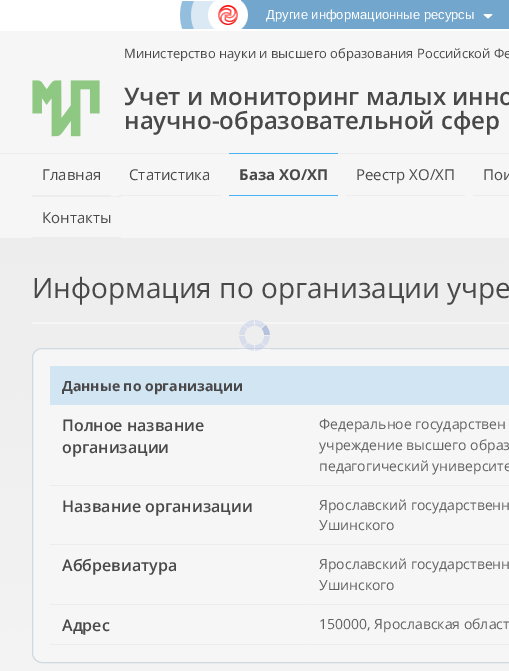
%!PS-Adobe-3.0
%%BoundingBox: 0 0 509 671
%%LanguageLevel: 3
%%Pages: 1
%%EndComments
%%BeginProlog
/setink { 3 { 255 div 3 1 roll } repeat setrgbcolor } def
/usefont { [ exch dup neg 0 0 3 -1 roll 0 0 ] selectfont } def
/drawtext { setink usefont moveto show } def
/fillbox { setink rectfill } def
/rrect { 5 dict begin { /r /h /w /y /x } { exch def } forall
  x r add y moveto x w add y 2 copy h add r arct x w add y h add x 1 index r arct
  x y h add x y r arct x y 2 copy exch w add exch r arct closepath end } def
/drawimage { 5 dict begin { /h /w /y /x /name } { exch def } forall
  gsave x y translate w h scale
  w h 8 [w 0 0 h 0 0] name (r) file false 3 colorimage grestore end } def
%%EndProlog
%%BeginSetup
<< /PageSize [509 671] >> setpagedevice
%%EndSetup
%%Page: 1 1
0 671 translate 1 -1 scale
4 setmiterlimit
0 0 509 671 246 246 246 fillbox
0 0 509 31 255 255 255 fillbox
(assets/img1.rgb) 180 1 58 28 drawimage
241 0 268 29 115 166 204 fillbox
(assets/img2.rgb) 241 1 7 28 drawimage
(assets/img3.rgb) 483 14 10 5 drawimage
(Другие информационные ресурсы) 266 19 /LiberationSans-Regular 13 255 255 255 drawtext
(Министерство науки и высшего образования Российской Фе) 124 58 /OpenSans-Regular 13 73 73 73 drawtext
(assets/img4.rgb) 32 80 68 57 drawimage
(Учет и мониторинг малых инно) 124 105 /OpenSans-SemiBold 24 73 73 73 drawtext
(научно-образовательной сфер) 124 129 /OpenSans-SemiBold 24 73 73 73 drawtext
0 153 509 1 237 237 237 fillbox
32 195 79 1 237 237 237 fillbox
(Главная) 42 180 /OpenSans-Regular 15 73 73 73 drawtext
119 195 102 1 237 237 237 fillbox
(Статистика) 129 180 /OpenSans-Regular 15 73 73 73 drawtext
229 153 109 1 73 177 246 fillbox
229 195 109 1 73 177 246 fillbox
(База ХО/ХП) 239 180 /OpenSans-Bold 15 73 73 73 drawtext
346 195 119 1 237 237 237 fillbox
(Реестр ХО/ХП) 356 180 /OpenSans-Regular 15 73 73 73 drawtext
473 195 36 1 237 237 237 fillbox
(Пои) 483 180 /OpenSans-Regular 15 73 73 73 drawtext
32 196 89 1 237 237 237 fillbox
32 237 89 1 237 237 237 fillbox
(Контакты) 42 223 /OpenSans-Regular 15 73 73 73 drawtext
(assets/img5.rgb) 0 238 509 433 drawimage
32 322 477 2 246 246 246 fillbox
(Информация по организации учре) 32 298 /OpenSans-Regular 28 73 73 73 drawtext
246 246 246 setink
32.5 348.5 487 314 9.5 rrect gsave fill grestore
208 217 224 setink
stroke
50 366 459 39 209 229 243 fillbox
(Данные по организации) 62 391 /OpenSans-Bold 14 73 73 73 drawtext
50 485 256 1 236 236 236 fillbox
(Полное название) 62 431 /OpenSans-SemiBold 16 73 73 73 drawtext
(организации) 62 453 /OpenSans-SemiBold 16 73 73 73 drawtext
307 485 202 1 236 236 236 fillbox
(Федеральное государствен) 319 429 /OpenSans-Regular 14 98 98 98 drawtext
(учреждение высшего образ) 319 450 /OpenSans-Regular 14 98 98 98 drawtext
(педагогический университе) 319 471 /OpenSans-Regular 14 98 98 98 drawtext
50 544 256 1 236 236 236 fillbox
(Название организации) 62 512 /OpenSans-SemiBold 16 73 73 73 drawtext
307 544 202 1 236 236 236 fillbox
(Ярославский государственн) 319 510 /OpenSans-Regular 14 98 98 98 drawtext
(Ушинского) 319 530 /OpenSans-Regular 14 98 98 98 drawtext
50 604 256 1 236 236 236 fillbox
(Аббревиатура) 62 571 /OpenSans-SemiBold 16 73 73 73 drawtext
307 604 202 1 236 236 236 fillbox
(Ярославский государственн) 319 569 /OpenSans-Regular 14 98 98 98 drawtext
(Ушинского) 319 590 /OpenSans-Regular 14 98 98 98 drawtext
50 644 256 1 236 236 236 fillbox
(Адрес) 62 631 /OpenSans-SemiBold 16 73 73 73 drawtext
307 644 202 1 236 236 236 fillbox
(150000, Ярославская област) 319 629 /OpenSans-Regular 14 98 98 98 drawtext
(assets/img6.rgb) 239 320 31 31 drawimage
showpage
%%EOF
